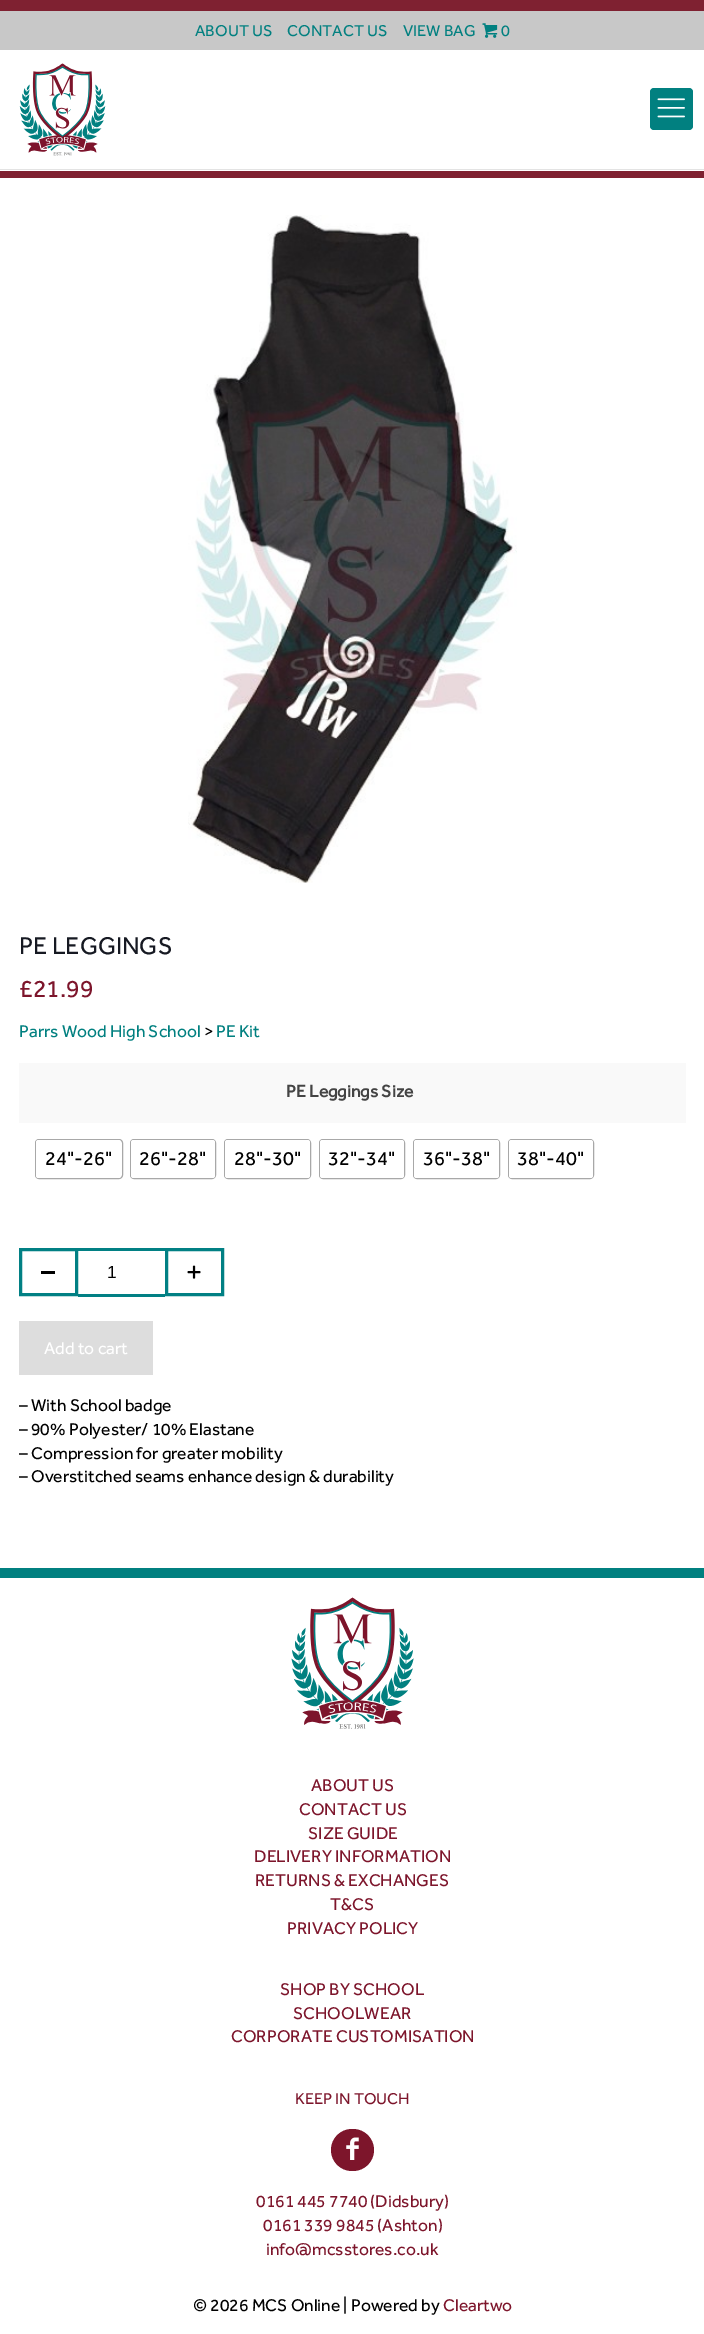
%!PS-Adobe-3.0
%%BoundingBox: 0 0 704 2334
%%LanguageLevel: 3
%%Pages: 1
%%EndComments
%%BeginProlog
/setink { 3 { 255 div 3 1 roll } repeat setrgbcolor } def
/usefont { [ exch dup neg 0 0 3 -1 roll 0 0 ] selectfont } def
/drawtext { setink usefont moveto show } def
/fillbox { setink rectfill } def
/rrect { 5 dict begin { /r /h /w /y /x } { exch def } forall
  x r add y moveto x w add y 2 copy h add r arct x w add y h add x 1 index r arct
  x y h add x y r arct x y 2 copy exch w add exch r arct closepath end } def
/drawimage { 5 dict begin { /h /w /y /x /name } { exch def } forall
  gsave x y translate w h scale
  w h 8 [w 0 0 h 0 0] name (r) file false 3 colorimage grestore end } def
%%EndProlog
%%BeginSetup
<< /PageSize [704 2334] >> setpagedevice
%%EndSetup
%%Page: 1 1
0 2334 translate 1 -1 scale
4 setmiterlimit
0 0 704 2334 255 255 255 fillbox
0 0 704 178 127 33 49 fillbox
0 11 704 39 200 200 200 fillbox
(ABOUT US) 195 36 /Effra-Regular 16.25 1 128 128 drawtext
(CONTACT US) 287 36 /Effra-Regular 16.25 1 128 128 drawtext
(VIEW BAG) 403 36 /Effra-Regular 16.25 1 128 128 drawtext
(assets/img1.rgb) 482 23 16 15 drawimage
(0) 501 36 /Effra-Regular 16.25 1 128 128 drawtext
0 50 704 121 255 255 255 fillbox
0 169 704 1 227 227 227 fillbox
(assets/img2.rgb) 19 63 87 93 drawimage
1 128 128 setink
650 88 43 42 4 rrect fill
(assets/img3.rgb) 657 98 28 20 drawimage
(assets/img4.rgb) 188 215 329 668 drawimage
(PE LEGGINGS) 19 954 /Effra-Regular 25 22 25 34 drawtext
(£21.99) 19 997 /Effra-Regular 25 125 21 43 drawtext
(Parrs Wood High School) 19 1037 /Effra-Regular 17.5 1 128 128 drawtext
(>) 204 1037 /Effra-Regular 17.5 0 0 0 drawtext
(PE Kit) 216 1037 /Effra-Regular 17.5 1 128 128 drawtext
19 1063 667 60 249 249 249 fillbox
(PE Leggings Size) 286 1097 /Effra-Bold 17.5 68 68 68 drawtext
168 168 168 setink
35.5 1139.5 87 39 3.5 rrect stroke
255 255 255 setink
36 1140 85 38 2.5 rrect fill
(24"-26") 45 1165 /Effra-Regular 20 0 0 0 drawtext
168 168 168 setink
130.5 1139.5 85 39 3.5 rrect stroke
255 255 255 setink
131 1140 84 38 2.5 rrect fill
(26"-28") 139 1165 /Effra-Regular 20 0 0 0 drawtext
168 168 168 setink
224.5 1139.5 86 39 3.5 rrect stroke
255 255 255 setink
225 1140 85 38 2.5 rrect fill
(28"-30") 234 1165 /Effra-Regular 20 0 0 0 drawtext
168 168 168 setink
319.5 1139.5 85 39 3.5 rrect stroke
255 255 255 setink
320 1140 84 38 2.5 rrect fill
(32"-34") 328 1165 /Effra-Regular 20 0 0 0 drawtext
168 168 168 setink
413.5 1139.5 86 39 3.5 rrect stroke
255 255 255 setink
414 1140 85 38 2.5 rrect fill
(36"-38") 423 1165 /Effra-Regular 20 0 0 0 drawtext
168 168 168 setink
508.5 1139.5 85 39 3.5 rrect stroke
255 255 255 setink
509 1140 84 38 2.5 rrect fill
(38"-40") 517 1165 /Effra-Regular 20 0 0 0 drawtext
1 128 132 setink
3 setlinewidth
20.5 1249.5 56 45 rectstroke
41 1271 14 3 0 0 0 fillbox
78 1248 87 3 1 128 132 fillbox
78 1294 87 3 1 128 132 fillbox
(1) 107 1278 /LiberationSans-Regular 17.5 0 0 0 drawtext
1 128 132 setink
166.5 1249.5 56 45 rectstroke
(assets/img5.rgb) 187 1265 14 14 drawimage
19 1321 134 54 221 221 221 fillbox
(Add to cart) 44 1354 /Effra-Regular 17.5 255 255 255 drawtext
(– With School badge) 19 1411 /Effra-Regular 17.5 0 0 0 drawtext
(– 90% Polyester/ 10% Elastane) 19 1435 /Effra-Regular 17.5 0 0 0 drawtext
(– Compression for greater mobility) 19 1459 /Effra-Regular 17.5 0 0 0 drawtext
(– Overstitched seams enhance design & durability) 19 1482 /Effra-Regular 17.5 0 0 0 drawtext
0 1568 704 10 1 128 128 fillbox
(assets/img6.rgb) 291 1597 123 132 drawimage
(ABOUT US) 311 1791 /Effra-Regular 17.5 125 21 43 drawtext
(CONTACT US) 299 1815 /Effra-Regular 17.5 125 21 43 drawtext
(SIZE GUIDE) 308 1839 /Effra-Regular 17.5 125 21 43 drawtext
(DELIVERY INFORMATION) 254 1862 /Effra-Regular 17.5 125 21 43 drawtext
(RETURNS & EXCHANGES) 255 1886 /Effra-Regular 17.5 125 21 43 drawtext
(T&CS) 330 1910 /Effra-Regular 17.5 125 21 43 drawtext
(PRIVACY POLICY) 287 1934 /Effra-Regular 17.5 125 21 43 drawtext
(SHOP BY SCHOOL) 280 1995 /Effra-Regular 17.5 125 21 43 drawtext
(SCHOOLWEAR) 293 2019 /Effra-Regular 17.5 125 21 43 drawtext
(CORPORATE CUSTOMISATION) 231 2042 /Effra-Regular 17.5 125 21 43 drawtext
(KEEP IN TOUCH) 295 2104 /Effra-Regular 16.25 125 21 43 drawtext
331 2129 43 42 21 rrect fill
(assets/img7.rgb) 346 2137 13 23 drawimage
(0161 445 7740 \(Didsbury\)) 256 2207 /Effra-Regular 17.5 125 21 43 drawtext
(0161 339 9845 \(Ashton\)) 263 2231 /Effra-Regular 17.5 125 21 43 drawtext
(info@mcsstores.co.uk) 266 2255 /Effra-Regular 17.5 125 21 43 drawtext
(© 2026 MCS Online | Powered by) 193 2311 /Effra-Regular 17.5 0 0 0 drawtext
(Cleartwo) 443 2311 /Effra-Regular 17.5 125 21 43 drawtext
showpage
%%EOF
